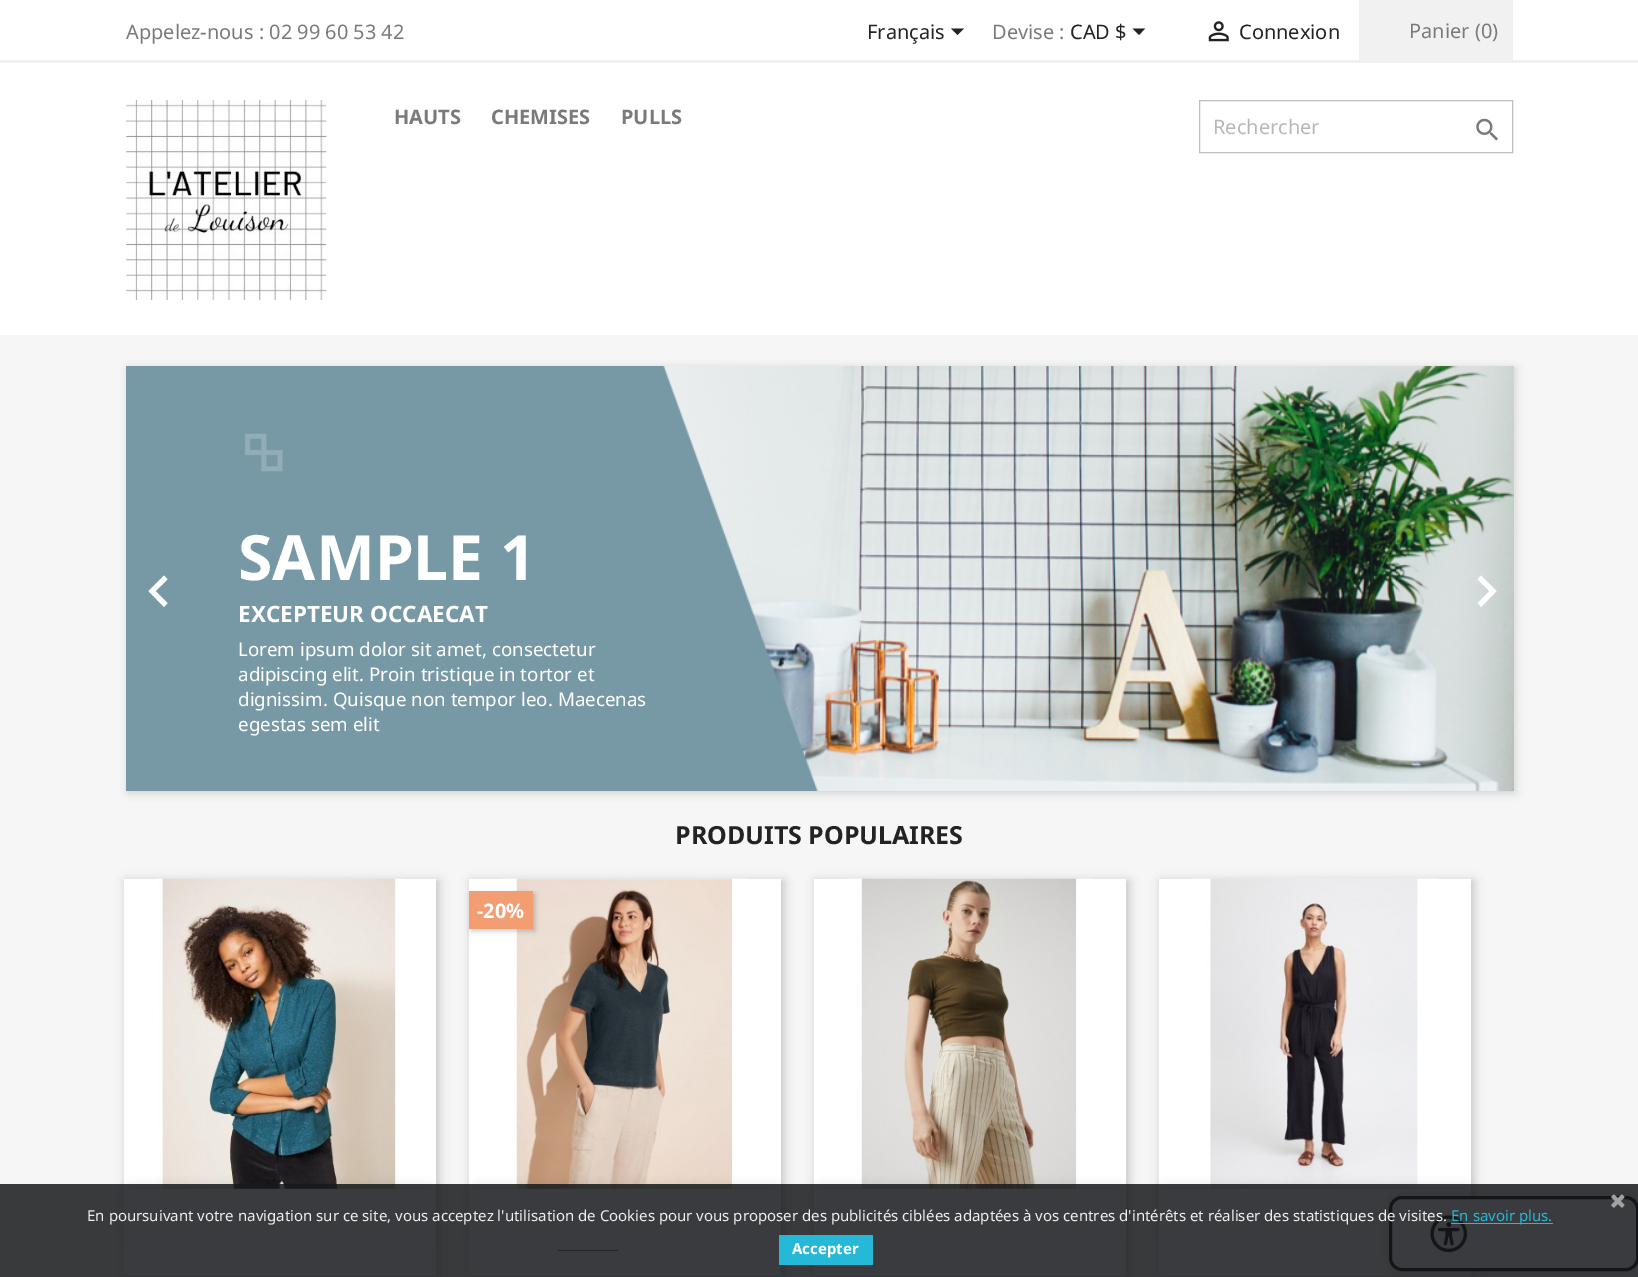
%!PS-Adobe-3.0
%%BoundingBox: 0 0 1638 1277
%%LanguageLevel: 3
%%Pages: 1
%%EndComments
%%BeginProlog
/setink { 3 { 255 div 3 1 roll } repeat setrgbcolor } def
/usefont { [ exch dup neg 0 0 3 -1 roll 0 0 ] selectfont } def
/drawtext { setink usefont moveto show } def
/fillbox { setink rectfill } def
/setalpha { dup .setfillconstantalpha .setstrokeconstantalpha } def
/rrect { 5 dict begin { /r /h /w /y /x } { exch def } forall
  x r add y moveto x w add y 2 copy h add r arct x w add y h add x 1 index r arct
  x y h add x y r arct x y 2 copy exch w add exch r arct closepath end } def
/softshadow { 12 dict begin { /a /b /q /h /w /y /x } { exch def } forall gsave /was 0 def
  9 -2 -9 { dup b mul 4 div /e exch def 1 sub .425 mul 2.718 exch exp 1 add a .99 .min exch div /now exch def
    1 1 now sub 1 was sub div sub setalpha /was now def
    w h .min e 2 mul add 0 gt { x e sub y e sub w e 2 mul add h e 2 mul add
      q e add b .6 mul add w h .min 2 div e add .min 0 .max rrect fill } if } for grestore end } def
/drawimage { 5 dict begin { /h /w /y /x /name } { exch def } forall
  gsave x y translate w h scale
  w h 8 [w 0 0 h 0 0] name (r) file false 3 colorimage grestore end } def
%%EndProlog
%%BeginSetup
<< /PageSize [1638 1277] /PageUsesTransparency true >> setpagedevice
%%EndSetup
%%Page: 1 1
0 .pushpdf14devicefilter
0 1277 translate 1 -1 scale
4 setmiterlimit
0 0 1638 1277 255 255 255 fillbox
0 60 1638 3 241 241 241 fillbox
(Appelez-nous : 02 99 60 53 42) 126 39 /NotoSans-Regular 20 122 122 122 drawtext
(Français) 867 39 /NotoSans-Regular 20 35 35 35 drawtext
951 28.5 moveto 964 28.5 lineto 957.5 35 lineto closepath fill
(Devise :) 992 39 /NotoSans-Regular 20 122 122 122 drawtext
(CAD $) 1070 39 /NotoSans-Regular 20 35 35 35 drawtext
1132.5 28.5 moveto 1145 28.5 lineto 1139 35 lineto closepath fill
(assets/img1.rgb) 1208 21 21 21 drawimage
(Connexion) 1239 39 /NotoSans-Regular 20 35 35 35 drawtext
1359 0 154 60 241 241 241 fillbox
(Panier \(0\)) 1409 38 /NotoSans-Regular 20 122 122 122 drawtext
(assets/img2.rgb) 126 100 201 200 drawimage
(HAUTS) 394 124 /NotoSans-Bold 20 122 122 122 drawtext
(CHEMISES) 491 124 /NotoSans-Bold 20 122 122 122 drawtext
(PULLS) 621 124 /NotoSans-Bold 20 122 122 122 drawtext
191 191 191 setink
1199.5 100.5 313 52 rectstroke
(Rechercher) 1213 134 /NotoSans-Regular 20 183 183 183 drawtext
(assets/img3.rgb) 1476 118 22 23 drawimage
0 335 1638 942 246 246 246 fillbox
0 0 0 setink
128 368 1387 425 0 4.5 0.15 softshadow
(assets/img4.rgb) 126 366 1388 425 drawimage
(SAMPLE 1) 238 580 /NotoSans-Bold 62.5 255 255 255 drawtext
(EXCEPTEUR OCCAECAT) 238 622 /NotoSans-Bold 22.5 255 255 255 drawtext
(Lorem ipsum dolor sit amet, consectetur) 238 656 /NotoSans-Regular 18.75 255 255 255 drawtext
(adipiscing elit. Proin tristique in tortor et) 238 681 /NotoSans-Regular 18.75 255 255 255 drawtext
(dignissim. Quisque non tempor leo. Maecenas) 238 706 /NotoSans-Regular 18.75 255 255 255 drawtext
(egestas sem elit) 238 731 /NotoSans-Regular 18.75 255 255 255 drawtext
167.5 579.5 moveto 155.5 591 lineto 167.5 603 lineto 164 607 lineto 148.5 591 lineto 164 575.5 lineto closepath fill
1481 575.5 moveto 1496.5 591 lineto 1481 607 lineto 1477.5 603 lineto 1489.5 591 lineto 1477.5 579.5 lineto closepath fill
(PRODUITS POPULAIRES) 675 844 /NotoSans-Bold 25 35 35 35 drawtext
0 0 0 setink
126 881 313 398 0 5 0.2 softshadow
124 879 312 310 255 255 255 fillbox
(assets/img5.rgb) 157 878 245 311 drawimage
0 0 0 setink
130 1189 300 50 0 6 0.2 softshadow
124 1189 312 87 255 255 255 fillbox
0 0 0 setink
471 881 313 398 0 5 0.2 softshadow
469 879 312 310 255 255 255 fillbox
(assets/img6.rgb) 502 878 245 311 drawimage
0 0 0 setink
471 894 64 37 0 2.5 0.2 softshadow
469 891 64 38 243 157 114 fillbox
(-20%) 477 918 /NotoSans-Bold 20 255 255 255 drawtext
0 0 0 setink
475 1189 300 50 0 6 0.2 softshadow
469 1189 312 87 255 255 255 fillbox
558 1250 60 1 122 122 122 fillbox
0 0 0 setink
816 881 313 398 0 5 0.2 softshadow
814 879 312 310 255 255 255 fillbox
(assets/img7.rgb) 847 878 245 311 drawimage
0 0 0 setink
820 1189 300 50 0 6 0.2 softshadow
814 1189 312 87 255 255 255 fillbox
0 0 0 setink
1161 881 313 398 0 5 0.2 softshadow
1159 879 312 310 255 255 255 fillbox
(assets/img8.rgb) 1192 878 245 311 drawimage
0 0 0 setink
1165 1189 300 50 0 6 0.2 softshadow
1159 1189 312 87 255 255 255 fillbox
204 204 204 setink
1389 1196 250 75 13 6 1 softshadow
255 255 255 setink
1390.5 1197.5 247 72 11.5 rrect gsave fill grestore
0 0 0 setink
3 setlinewidth
stroke
(assets/img9.rgb) 1430 1215 38 38 drawimage
0.85 setalpha
0 1184 1638 93 23 25 28 fillbox
1 setalpha
(assets/img10.rgb) 1611 1194 14 14 drawimage
(En poursuivant votre navigation sur ce site, vous acceptez l'utilisation de Cookies pour vous proposer des publicités ciblées adaptées à vos centres d'intérêts et réaliser des statistiques de visites.) 87 1221 /NotoSans-Regular 15 239 239 239 drawtext
1451 1223 102 1 37 185 215 fillbox
(En savoir plus.) 1451 1221 /NotoSans-Regular 15 37 185 215 drawtext
779 1235 94 30 37 185 215 fillbox
(Accepter) 792 1254 /NotoSans-Bold 15 255 255 255 drawtext
.poppdf14devicefilter showpage
%%EOF
